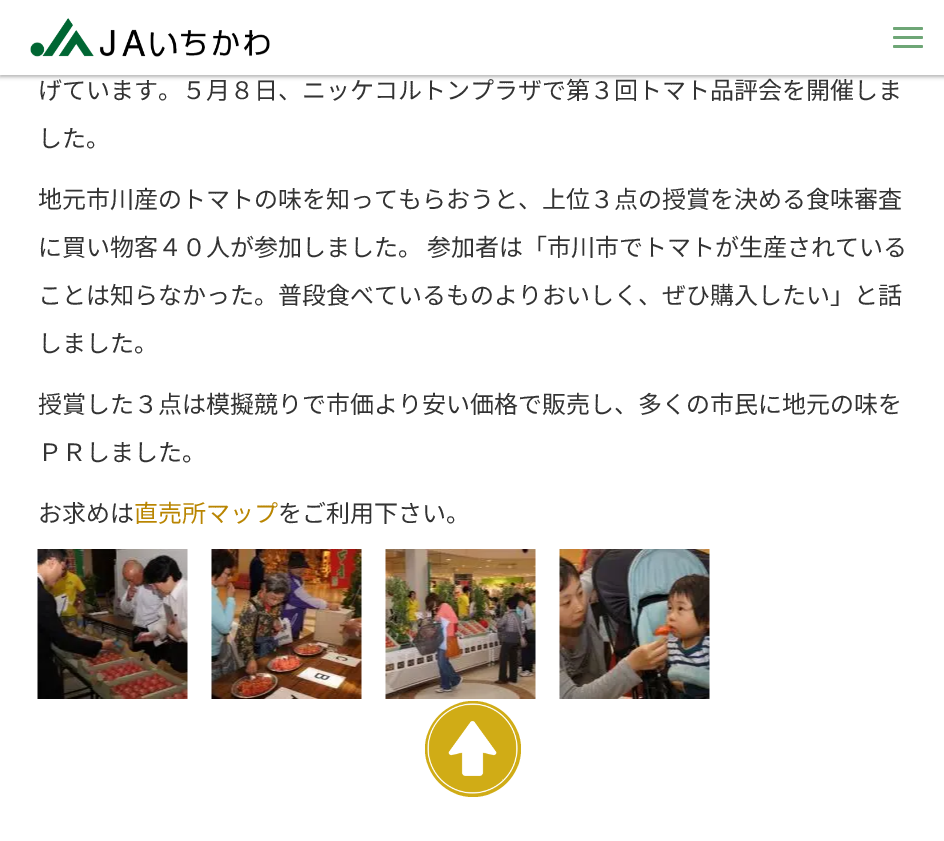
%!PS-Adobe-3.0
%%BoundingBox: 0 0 944 841
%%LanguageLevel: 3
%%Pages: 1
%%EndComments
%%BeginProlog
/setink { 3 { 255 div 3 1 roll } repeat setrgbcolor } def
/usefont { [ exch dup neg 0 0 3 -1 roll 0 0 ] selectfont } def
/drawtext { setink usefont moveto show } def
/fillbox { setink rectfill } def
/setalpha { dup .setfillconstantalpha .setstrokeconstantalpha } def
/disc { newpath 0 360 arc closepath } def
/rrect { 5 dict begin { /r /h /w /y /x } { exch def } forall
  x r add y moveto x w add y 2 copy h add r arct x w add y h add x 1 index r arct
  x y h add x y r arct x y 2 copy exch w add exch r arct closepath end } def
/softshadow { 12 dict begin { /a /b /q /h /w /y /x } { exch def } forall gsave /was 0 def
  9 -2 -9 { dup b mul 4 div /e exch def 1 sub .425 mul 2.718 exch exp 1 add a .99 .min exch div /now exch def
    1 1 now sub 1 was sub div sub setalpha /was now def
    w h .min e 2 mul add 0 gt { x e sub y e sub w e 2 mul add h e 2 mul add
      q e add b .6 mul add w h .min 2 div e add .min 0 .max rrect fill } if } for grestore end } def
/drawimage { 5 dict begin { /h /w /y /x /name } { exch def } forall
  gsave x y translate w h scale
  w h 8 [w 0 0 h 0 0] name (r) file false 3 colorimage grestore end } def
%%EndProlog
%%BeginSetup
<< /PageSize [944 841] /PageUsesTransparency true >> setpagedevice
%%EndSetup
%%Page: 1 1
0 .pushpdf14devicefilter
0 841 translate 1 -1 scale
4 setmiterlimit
0 0 944 841 255 255 255 fillbox
0 0 0 setink
0 2 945 75 0 2 0.3 softshadow
0 0 944 75 255 255 255 fillbox
(assets/img1.rgb) 30 18 240 39 drawimage
110 166 118 setink
893 27 30 3 1.5 rrect fill
893 36 30 3 1.5 rrect fill
893 45 30 3 1.5 rrect fill
(げています。５月８日、ニッケコルトンプラザで第３回トマト品評会を開催しま) 38 99 /NotoSansJP-Regular 24 51 51 51 drawtext
(した。) 38 147 /NotoSansJP-Regular 24 51 51 51 drawtext
(地元市川産のトマトの味を知ってもらおうと、上位３点の授賞を決める食味審査) 38 208 /NotoSansJP-Regular 24 51 51 51 drawtext
(に買い物客４０人が参加しました。 参加者は「市川市でトマトが生産されている) 38 256 /NotoSansJP-Regular 24 51 51 51 drawtext
(ことは知らなかった。普段食べているものよりおいしく、ぜひ購入したい」と話) 38 304 /NotoSansJP-Regular 24 51 51 51 drawtext
(しました。) 38 352 /NotoSansJP-Regular 24 51 51 51 drawtext
(授賞した３点は模擬競りで市価より安い価格で販売し、多くの市民に地元の味を) 38 413 /NotoSansJP-Regular 24 51 51 51 drawtext
(ＰＲしました。) 38 461 /NotoSansJP-Regular 24 51 51 51 drawtext
(お求めは) 38 522 /NotoSansJP-Regular 24 51 51 51 drawtext
(直売所マップ) 134 522 /NotoSansJP-Regular 24 185 133 1 drawtext
(をご利用下さい。) 278 522 /NotoSansJP-Regular 24 51 51 51 drawtext
(assets/img2.rgb) 37 549 151 150 drawimage
(assets/img3.rgb) 211 549 151 150 drawimage
(assets/img4.rgb) 385 549 151 150 drawimage
(assets/img5.rgb) 559 549 151 150 drawimage
208 172 22 setink
473 749 48 disc fill
(assets/img6.rgb) 427 703 91 91 drawimage
.poppdf14devicefilter showpage
%%EOF
